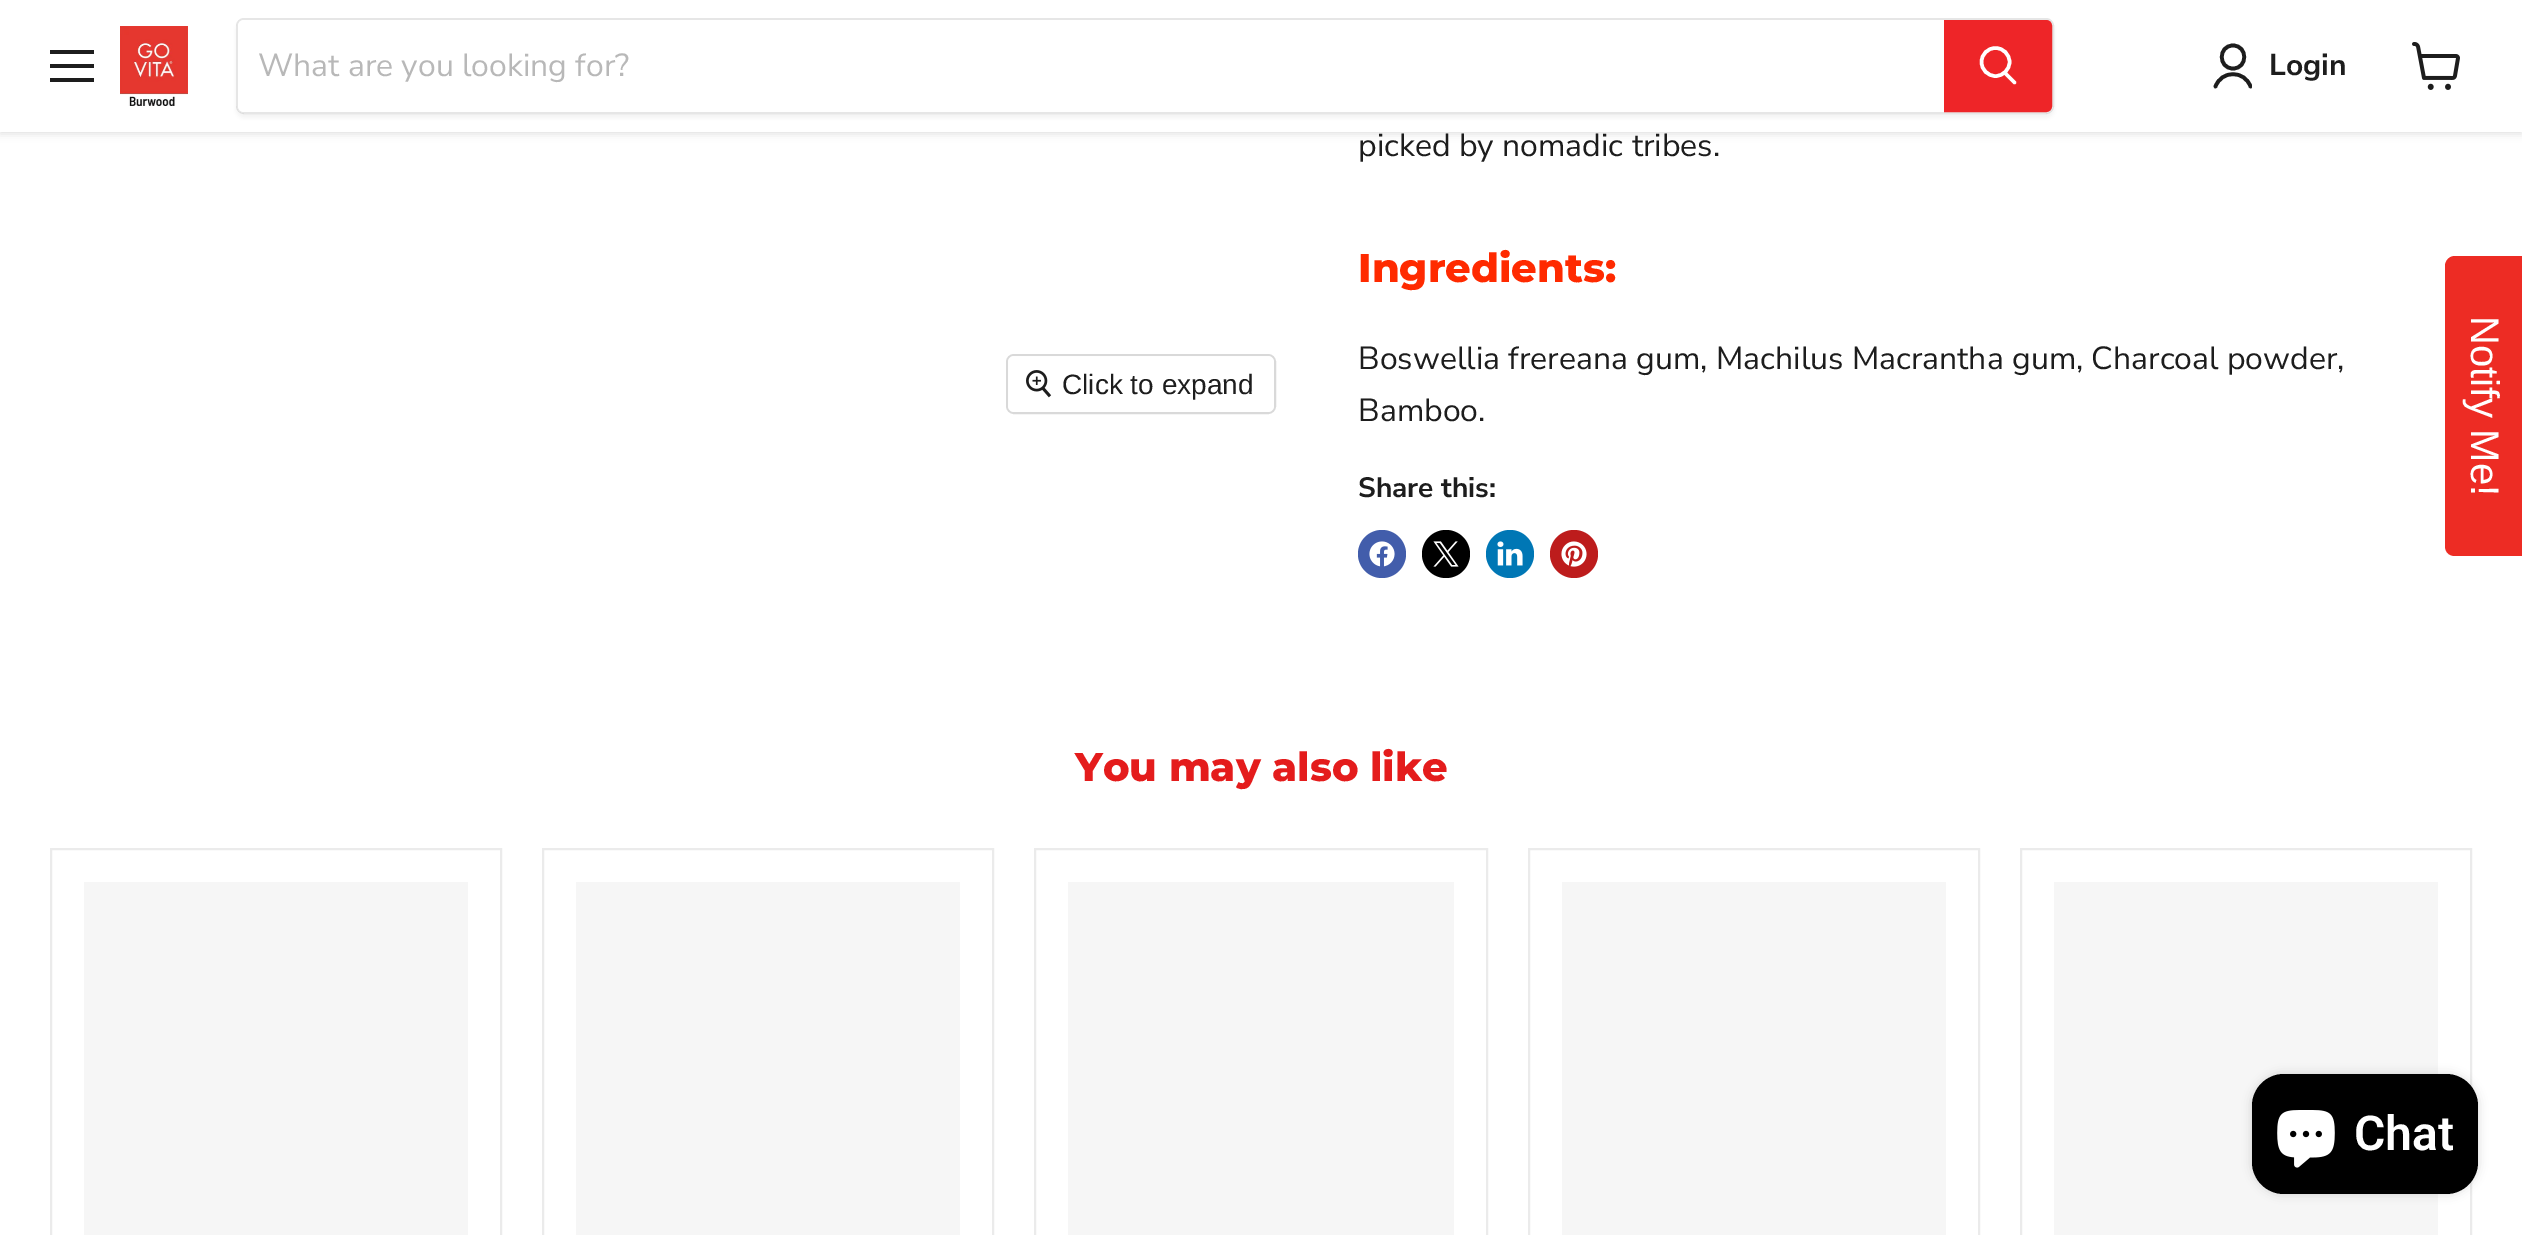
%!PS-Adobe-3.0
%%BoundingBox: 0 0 2522 1235
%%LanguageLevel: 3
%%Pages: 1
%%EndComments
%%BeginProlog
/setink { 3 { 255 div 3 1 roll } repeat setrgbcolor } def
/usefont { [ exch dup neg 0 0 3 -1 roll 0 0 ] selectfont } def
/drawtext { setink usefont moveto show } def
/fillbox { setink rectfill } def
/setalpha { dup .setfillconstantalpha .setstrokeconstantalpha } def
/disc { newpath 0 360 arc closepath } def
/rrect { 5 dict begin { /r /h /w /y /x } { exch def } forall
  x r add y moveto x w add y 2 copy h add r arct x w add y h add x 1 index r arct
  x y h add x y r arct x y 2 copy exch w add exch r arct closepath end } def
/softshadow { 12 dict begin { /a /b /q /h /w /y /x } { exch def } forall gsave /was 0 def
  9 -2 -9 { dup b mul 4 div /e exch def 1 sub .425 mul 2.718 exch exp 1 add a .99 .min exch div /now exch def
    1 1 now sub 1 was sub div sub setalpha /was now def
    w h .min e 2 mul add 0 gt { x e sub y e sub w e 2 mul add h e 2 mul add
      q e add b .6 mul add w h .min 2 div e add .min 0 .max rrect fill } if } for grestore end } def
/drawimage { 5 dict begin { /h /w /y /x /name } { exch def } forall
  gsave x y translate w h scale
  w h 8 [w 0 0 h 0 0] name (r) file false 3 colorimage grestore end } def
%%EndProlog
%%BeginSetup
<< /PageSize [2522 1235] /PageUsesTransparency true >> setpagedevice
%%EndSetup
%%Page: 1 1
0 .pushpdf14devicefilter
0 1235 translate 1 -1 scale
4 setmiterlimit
0 0 2522 1235 255 255 255 fillbox
128 128 128 setink
0 2 2522 132 0 4 0.25 softshadow
0 0 2522 132 255 255 255 fillbox
50 50 44 4 29 29 29 fillbox
50 64 44 4 29 29 29 fillbox
50 78 44 4 29 29 29 fillbox
(assets/img1.rgb) 120 26 68 80 drawimage
gsave
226 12 moveto 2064 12 lineto 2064 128 lineto 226 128 lineto closepath 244 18 moveto 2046 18 lineto 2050.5 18 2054 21.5 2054 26 curveto 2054 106 lineto 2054 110.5 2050.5 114 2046 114 curveto 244 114 lineto 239.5 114 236 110.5 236 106 curveto 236 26 lineto 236 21.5 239.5 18 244 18 curveto closepath eoclip newpath
128 128 128 setink
236 22 1818 96 8 3 0.11 softshadow
grestore
0.2 setalpha
128 128 128 setink
2 setlinewidth
237 19 1816 94 7 rrect stroke
1 setalpha
255 255 255 setink
244 20 moveto 1944 20 lineto 1944 112 lineto 244 112 lineto 240.5 112 238 109.5 238 106 curveto 238 26 lineto 238 22.5 240.5 20 244 20 curveto closepath fill
(What are you looking for?) 258 76 /NunitoSans-Regular 32 184 184 184 drawtext
238 37 40 setink
1945 21 moveto 2046 21 lineto 2049 21 2051 23 2051 26 curveto 2051 106 lineto 2051 109 2049 111 2046 111 curveto 1945 111 lineto closepath gsave fill grestore
stroke
255 255 255 setink
3.5 setlinewidth
1 setlinecap
2014.5 82.5 moveto 2005 73 lineto stroke
0 setlinecap
1995.5 62 14 disc stroke
29 29 29 setink
3.7 setlinewidth
1 setlinecap
1 setlinejoin
2233 68.5 moveto 2248 68.5 2248 45.5 2233 45.5 curveto 2218 45.5 2218 68.5 2233 68.5 curveto closepath stroke
gsave
2212 42 40 48 rectclip
2250.5 86.5 moveto 2244.5 70 2221.5 70 2215.5 86.5 curveto stroke
grestore
(Login) 2269 75 /NunitoSans-Bold 30 29 29 29 drawtext
(assets/img2.rgb) 2412 42 48 48 drawimage
217 217 217 setink
2 setlinewidth
0 setlinecap
0 setlinejoin
1007 355 268 58 7 rrect stroke
0.9 setalpha
255 255 255 setink
1008 356 266 56 6 rrect fill
1 setalpha
(assets/img3.rgb) 1026 370 26 28 drawimage
(Click to expand) 1062 394 /LiberationSans-Regular 28 29 29 29 drawtext
(picked by nomadic tribes.) 1358 156 /NunitoSans-Regular 32 29 29 29 drawtext
(Ingredients:) 1358 282 /Montserrat-ExtraBold 40 255 42 0 drawtext
(Boswellia frereana gum, Machilus Macrantha gum, Charcoal powder,) 1358 369 /NunitoSans-Regular 32 29 29 29 drawtext
(Bamboo.) 1358 421 /NunitoSans-Regular 32 29 29 29 drawtext
(Share this:) 1358 497 /NunitoSans-Bold 28 29 29 29 drawtext
66 93 171 setink
1382 554 24 disc fill
(assets/img4.rgb) 1369 541 26 26 drawimage
0 0 0 setink
1446 554 24 disc fill
(assets/img5.rgb) 1433 541 26 26 drawimage
0 119 181 setink
1510 554 24 disc fill
(assets/img6.rgb) 1497 541 26 25 drawimage
189 28 28 setink
1574 554 24 disc fill
(assets/img7.rgb) 1561 541 26 26 drawimage
(You may also like) 1075 781 /Montserrat-ExtraBold 40 228 28 28 drawtext
235 235 235 setink
51 849 450 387 rectstroke
84 882 384 353 246 246 246 fillbox
235 235 235 setink
543 849 450 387 rectstroke
576 882 384 353 246 246 246 fillbox
235 235 235 setink
1035 849 452 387 rectstroke
1068 882 386 353 246 246 246 fillbox
235 235 235 setink
1529 849 450 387 rectstroke
1562 882 384 353 246 246 246 fillbox
235 235 235 setink
2021 849 450 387 rectstroke
2054 882 384 353 246 246 246 fillbox
237 44 36 setink
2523 256 moveto 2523 556 lineto 2455 556 lineto 2449 556 2445 552 2445 546 curveto 2445 266 lineto 2445 261 2449 256 2455 256 curveto closepath fill
/LiberationSans-Regular 40 usefont
255 255 255 setink
gsave 2471 316 translate 90 rotate 0 0 moveto (Notify Me!) show grestore
0 0 0 setink
2252 1074 226 120 32 5 0.15 softshadow
2252 1074 226 120 32 rrect fill
(assets/img8.rgb) 2277 1110 58 58 drawimage
(Chat) 2354 1150 /Roboto-SemiBold 48 255 255 255 drawtext
.poppdf14devicefilter showpage
%%EOF
